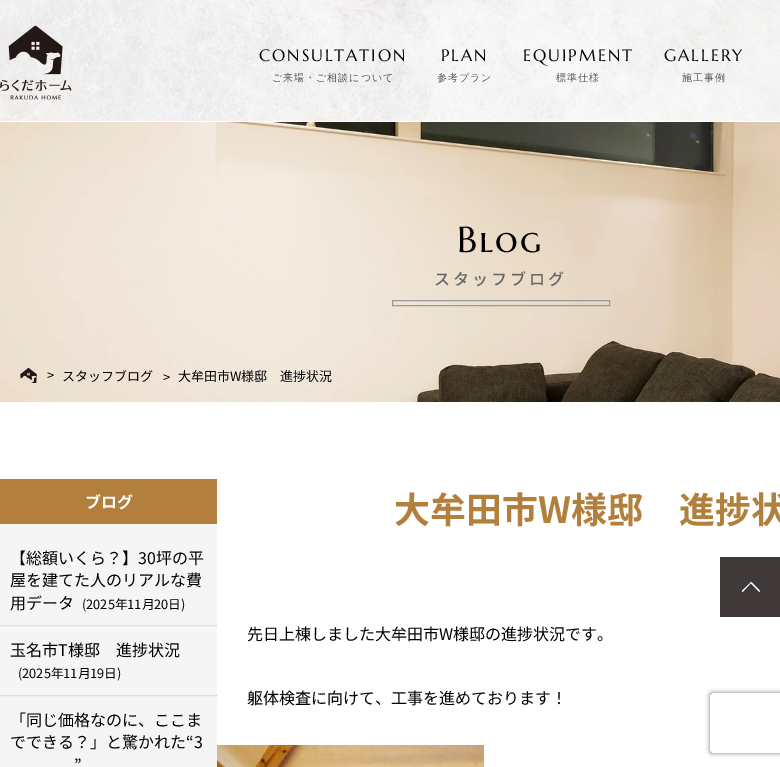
%!PS-Adobe-3.0
%%BoundingBox: 0 0 780 767
%%LanguageLevel: 3
%%Pages: 1
%%EndComments
%%BeginProlog
/setink { 3 { 255 div 3 1 roll } repeat setrgbcolor } def
/usefont { [ exch dup neg 0 0 3 -1 roll 0 0 ] selectfont } def
/drawtext { setink usefont moveto show } def
/fillbox { setink rectfill } def
/setalpha { dup .setfillconstantalpha .setstrokeconstantalpha } def
/rrect { 5 dict begin { /r /h /w /y /x } { exch def } forall
  x r add y moveto x w add y 2 copy h add r arct x w add y h add x 1 index r arct
  x y h add x y r arct x y 2 copy exch w add exch r arct closepath end } def
/softshadow { 12 dict begin { /a /b /q /h /w /y /x } { exch def } forall gsave /was 0 def
  9 -2 -9 { dup b mul 4 div /e exch def 1 sub .425 mul 2.718 exch exp 1 add a .99 .min exch div /now exch def
    1 1 now sub 1 was sub div sub setalpha /was now def
    w h .min e 2 mul add 0 gt { x e sub y e sub w e 2 mul add h e 2 mul add
      q e add b .6 mul add w h .min 2 div e add .min 0 .max rrect fill } if } for grestore end } def
/drawimage { 5 dict begin { /h /w /y /x /name } { exch def } forall
  gsave x y translate w h scale
  w h 8 [w 0 0 h 0 0] name (r) file false 3 colorimage grestore end } def
%%EndProlog
%%BeginSetup
<< /PageSize [780 767] /PageUsesTransparency true >> setpagedevice
%%EndSetup
%%Page: 1 1
0 .pushpdf14devicefilter
0 767 translate 1 -1 scale
4 setmiterlimit
0 0 780 767 255 255 255 fillbox
(assets/img1.rgb) 0 0 780 121 drawimage
(assets/img2.rgb) 0 25 72 75 drawimage
/MarcellusSC-Regular 16.5 usefont
0 0 0 setink
259 61 moveto 2 0 (CONSULTATION) ashow
/WenQuanYiZenHei-Medium 10 usefont
85 85 85 setink
272 81 moveto 1 0 (ご来場・ご相談について) ashow
/MarcellusSC-Regular 16.5 usefont
0 0 0 setink
441 61 moveto 2 0 (PLAN) ashow
/WenQuanYiZenHei-Medium 10 usefont
85 85 85 setink
437 81 moveto 1 0 (参考プラン) ashow
/MarcellusSC-Regular 16.5 usefont
0 0 0 setink
523 61 moveto 2 0 (EQUIPMENT) ashow
/WenQuanYiZenHei-Medium 10 usefont
85 85 85 setink
556 81 moveto 1 0 (標準仕様) ashow
/MarcellusSC-Regular 16.5 usefont
0 0 0 setink
664 61 moveto 2 0 (GALLERY) ashow
/WenQuanYiZenHei-Medium 10 usefont
85 85 85 setink
682 81 moveto 1 0 (施工事例) ashow
(assets/img3.rgb) 0 122 780 280 drawimage
/MarcellusSC-Regular 36 usefont
0 0 0 setink
457 252 moveto 2 0 (Blog) ashow
/NotoSansJP-Medium 16 usefont
102 102 102 setink
434 285 moveto 3 0 (スタッフブログ) ashow
153 153 153 setink
392.5 300.5 217 5 rectstroke
(assets/img4.rgb) 20 367 17 16 drawimage
(>) 47 380 /NotoSansJP-Regular 13 0 0 0 drawtext
(スタッフブログ) 62 381 /NotoSansJP-Regular 13 0 0 0 drawtext
(>) 163 382 /NotoSansJP-Regular 13 0 0 0 drawtext
(大牟田市W様邸　進捗状況) 178 381 /NotoSansJP-Regular 13 0 0 0 drawtext
0 524 217 243 245 245 245 fillbox
0 479 217 45 178 127 61 fillbox
(ブログ) 85 508 /NotoSansJP-Bold 16 255 255 255 drawtext
204 204 204 setink
[1 1] 0 setdash
0 625.5 moveto 217 625.5 lineto stroke
(【総額いくら？】30坪の平) 10 564 /NotoSansJP-Regular 16 0 0 0 drawtext
(屋を建てた人のリアルな費) 10 586 /NotoSansJP-Regular 16 0 0 0 drawtext
(用データ) 10 609 /NotoSansJP-Regular 16 0 0 0 drawtext
(\(2025年11月20日\)) 82 609 /NotoSansJP-Regular 12.75 0 0 0 drawtext
204 204 204 setink
0 695.5 moveto 217 695.5 lineto stroke
(玉名市T様邸　進捗状況) 10 656 /NotoSansJP-Regular 16 0 0 0 drawtext
(\(2025年11月19日\)) 18 678 /NotoSansJP-Regular 12.75 0 0 0 drawtext
(「同じ価格なのに、ここま) 10 726 /NotoSansJP-Regular 16 0 0 0 drawtext
(でできる？」と驚かれた“3) 10 748 /NotoSansJP-Regular 16 0 0 0 drawtext
(”) 74 771 /NotoSansJP-Regular 16 0 0 0 drawtext
(大牟田市W様邸　進捗状) 394 523 /NotoSansJP-Bold 36 178 127 61 drawtext
(先日上棟しました大牟田市W様邸の進捗状況です。) 247 640 /NotoSansJP-Regular 16 0 0 0 drawtext
(躯体検査に向けて、工事を進めております！) 247 704 /NotoSansJP-Regular 16 0 0 0 drawtext
(assets/img5.rgb) 217 745 267 22 drawimage
(assets/img6.rgb) 720 557 60 60 drawimage
gsave
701 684 moveto 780 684 lineto 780 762 lineto 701 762 lineto closepath 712 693 moveto 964 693 lineto 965 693 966 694 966 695 curveto 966 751 lineto 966 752 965 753 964 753 curveto 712 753 lineto 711 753 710 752 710 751 curveto 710 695 lineto 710 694 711 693 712 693 curveto closepath eoclip newpath
128 128 128 setink
710 693 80 60 2 2.5 1 softshadow
grestore
.poppdf14devicefilter showpage
%%EOF
